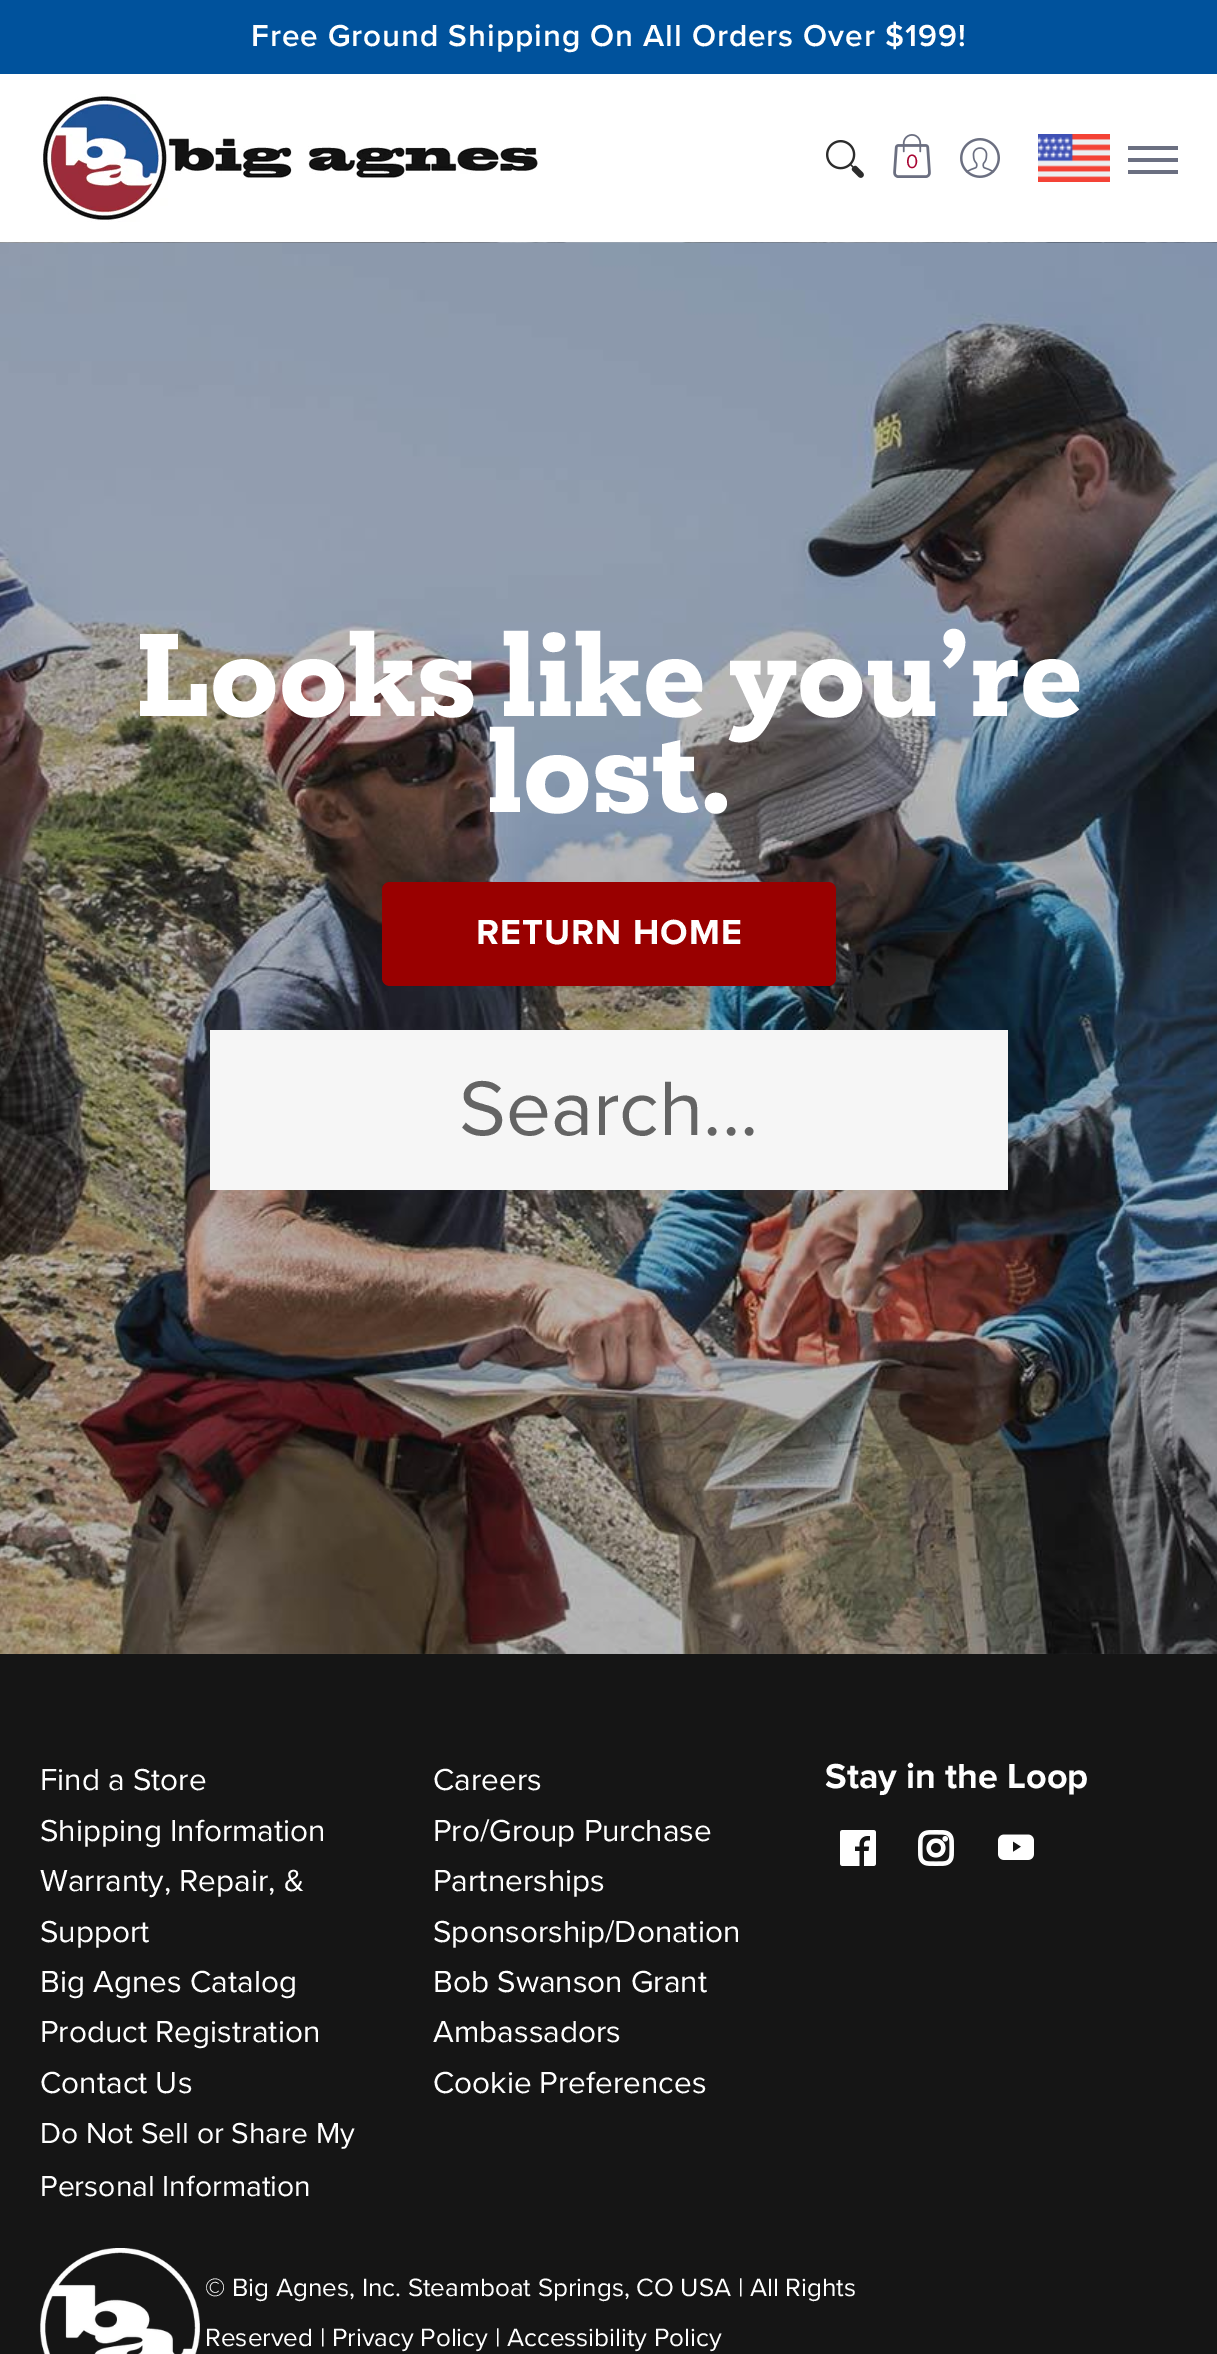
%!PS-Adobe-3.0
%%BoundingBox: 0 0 1217 2354
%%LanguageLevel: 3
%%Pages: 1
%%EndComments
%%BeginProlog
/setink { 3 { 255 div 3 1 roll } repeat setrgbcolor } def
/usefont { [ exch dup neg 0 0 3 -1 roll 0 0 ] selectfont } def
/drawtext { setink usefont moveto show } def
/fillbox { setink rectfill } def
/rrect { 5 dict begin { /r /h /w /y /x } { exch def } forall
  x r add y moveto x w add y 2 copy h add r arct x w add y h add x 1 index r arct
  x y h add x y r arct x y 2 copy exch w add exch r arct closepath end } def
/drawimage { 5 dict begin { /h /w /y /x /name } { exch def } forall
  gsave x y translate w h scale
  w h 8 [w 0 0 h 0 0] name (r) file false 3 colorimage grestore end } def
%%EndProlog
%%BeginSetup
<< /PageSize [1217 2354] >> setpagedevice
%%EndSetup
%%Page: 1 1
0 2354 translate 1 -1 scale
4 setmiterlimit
0 0 1217 2354 255 255 255 fillbox
0 0 1217 74 0 82 156 fillbox
/ProximaNova-SemiBold 31.5 usefont
255 255 255 setink
251 46 moveto 1 0 (Free Ground Shipping On All Orders Over $199!) ashow
(assets/img1.rgb) 43 94 496 128 drawimage
(assets/img2.rgb) 826 140 38 38 drawimage
(assets/img3.rgb) 893 134 38 44 drawimage
(0) 906 168 /ProximaNova-Regular 20 168 5 50 drawtext
(assets/img4.rgb) 960 138 40 40 drawimage
(assets/img5.rgb) 1038 134 72 48 drawimage
1128 146 50 4 107 111 129 fillbox
1128 170 50 4 107 111 129 fillbox
1128 158 50 4 107 111 129 fillbox
(assets/img6.rgb) 0 242 1217 1412 drawimage
(Looks like you’re) 136 716 /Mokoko-ExtraBold 108 255 255 255 drawtext
(lost.) 487 812 /Mokoko-ExtraBold 108 255 255 255 drawtext
153 0 0 setink
382 882 454 104 8 rrect fill
/ProximaNova-Bold 36 usefont
255 255 255 setink
476 944 moveto 1 0 (RETURN HOME) ashow
210 1030 798 160 246 246 246 fillbox
(Search...) 459 1135 /ProximaNova-Regular 80 100 100 100 drawtext
0 1654 1217 700 21 21 21 fillbox
(Find a Store) 40 1790 /ProximaNova-Regular 31.5 255 255 255 drawtext
(Shipping Information) 40 1841 /ProximaNova-Regular 31.5 255 255 255 drawtext
(Warranty, Repair, &) 40 1891 /ProximaNova-Regular 31.5 255 255 255 drawtext
(Support) 40 1942 /ProximaNova-Regular 31.5 255 255 255 drawtext
(Big Agnes Catalog) 40 1992 /ProximaNova-Regular 31.5 255 255 255 drawtext
(Product Registration) 40 2042 /ProximaNova-Regular 31.5 255 255 255 drawtext
(Contact Us) 40 2093 /ProximaNova-Regular 31.5 255 255 255 drawtext
(Do Not Sell or Share My) 40 2143 /ProximaNova-Regular 30 255 255 255 drawtext
(Personal Information) 40 2196 /ProximaNova-Regular 30 255 255 255 drawtext
(Careers) 433 1790 /ProximaNova-Regular 31.5 255 255 255 drawtext
(Pro/Group Purchase) 433 1841 /ProximaNova-Regular 31.5 255 255 255 drawtext
(Partnerships) 433 1891 /ProximaNova-Regular 31.5 255 255 255 drawtext
(Sponsorship/Donation) 433 1942 /ProximaNova-Regular 31.5 255 255 255 drawtext
(Bob Swanson Grant) 433 1992 /ProximaNova-Regular 31.5 255 255 255 drawtext
(Ambassadors) 433 2042 /ProximaNova-Regular 31.5 255 255 255 drawtext
(Cookie Preferences) 433 2093 /ProximaNova-Regular 31.5 255 255 255 drawtext
(Stay in the Loop) 825 1788 /ProximaNova-Bold 36 255 255 255 drawtext
(assets/img7.rgb) 840 1830 36 36 drawimage
(assets/img8.rgb) 918 1830 36 36 drawimage
(assets/img9.rgb) 998 1834 36 26 drawimage
(assets/img10.rgb) 40 2248 160 106 drawimage
(© Big Agnes, Inc. Steamboat Springs, CO USA | All Rights) 205 2296 /ProximaNova-Regular 26 255 255 255 drawtext
(Reserved | Privacy Policy | Accessibility Policy) 205 2346 /ProximaNova-Regular 26 255 255 255 drawtext
showpage
%%EOF
